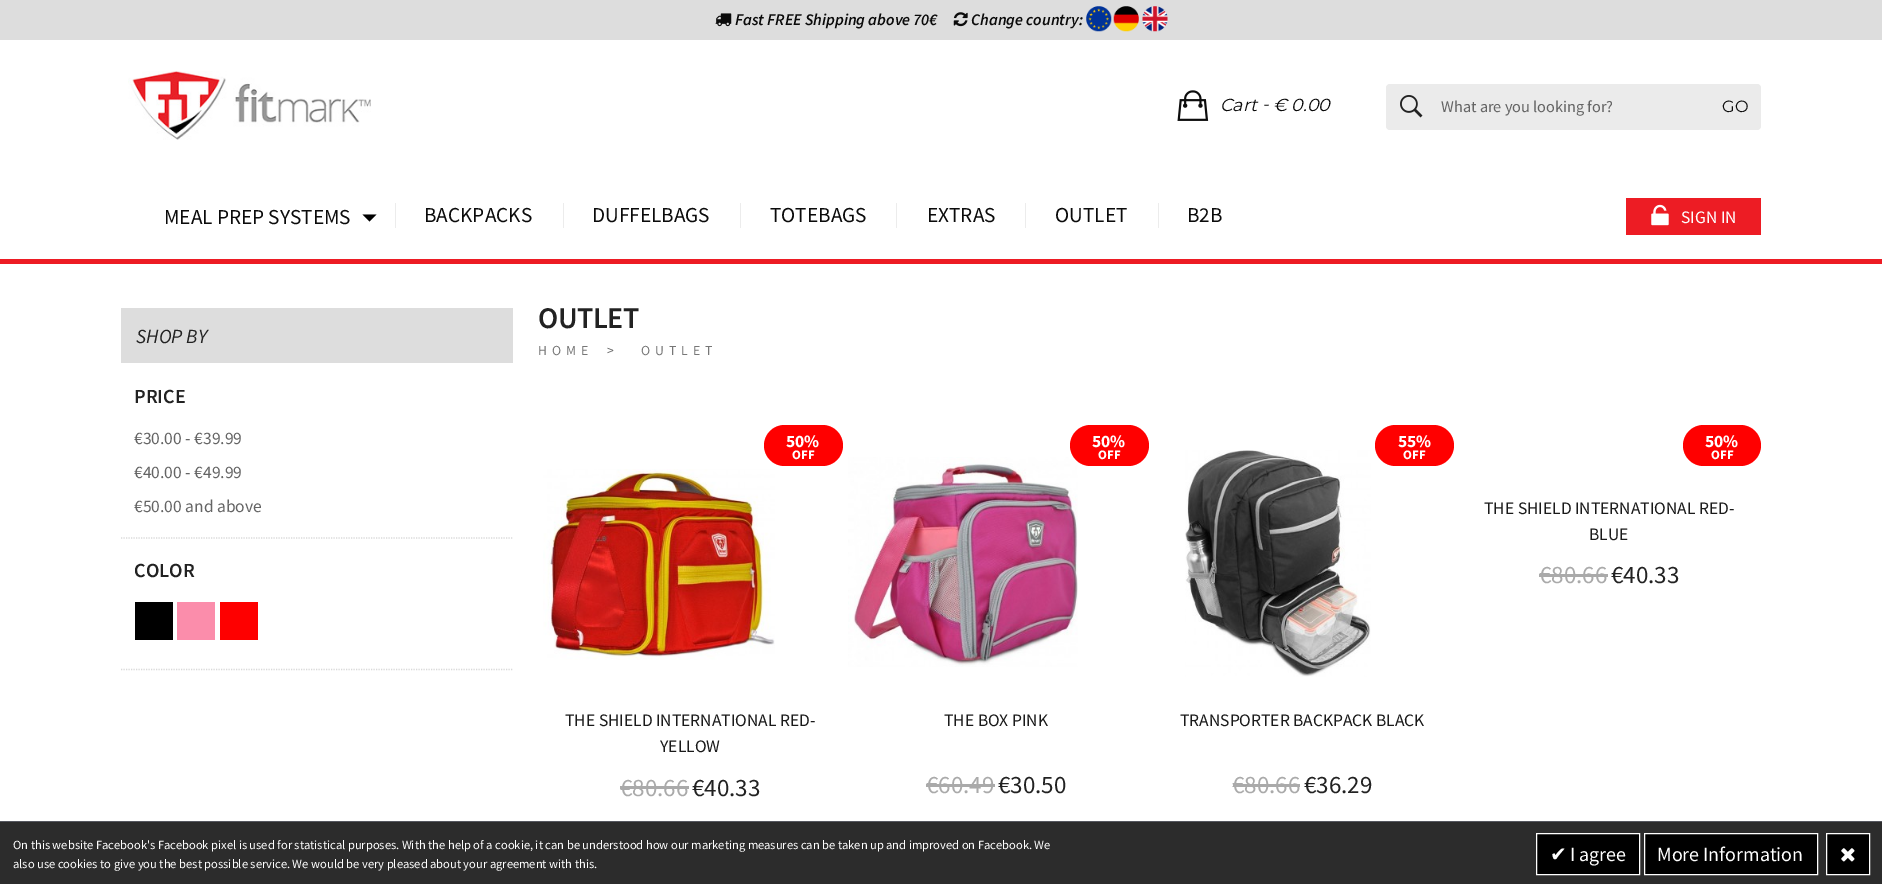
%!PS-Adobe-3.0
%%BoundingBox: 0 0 1882 884
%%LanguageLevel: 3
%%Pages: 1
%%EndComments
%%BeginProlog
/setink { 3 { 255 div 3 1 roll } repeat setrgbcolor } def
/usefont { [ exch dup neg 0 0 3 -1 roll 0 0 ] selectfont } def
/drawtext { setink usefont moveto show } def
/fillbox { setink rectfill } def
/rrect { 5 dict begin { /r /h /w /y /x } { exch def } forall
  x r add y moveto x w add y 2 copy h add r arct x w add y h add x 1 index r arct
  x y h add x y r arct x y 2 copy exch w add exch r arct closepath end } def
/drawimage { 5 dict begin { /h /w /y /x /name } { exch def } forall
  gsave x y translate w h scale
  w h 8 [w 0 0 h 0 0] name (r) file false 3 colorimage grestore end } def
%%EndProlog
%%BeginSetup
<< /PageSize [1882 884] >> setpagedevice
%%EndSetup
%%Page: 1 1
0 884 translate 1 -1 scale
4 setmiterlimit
0 0 1882 884 255 255 255 fillbox
0 0 1882 40 221 221 221 fillbox
(assets/img1.rgb) 715 13 17 14 drawimage
(Fast FREE Shipping above 70€) 735 25 /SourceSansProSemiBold-SemiBoldItalic 16.25 11 11 11 drawtext
(assets/img2.rgb) 953 12 15 15 drawimage
(Change country:) 971 25 /SourceSansProSemiBold-SemiBoldItalic 16.25 11 11 11 drawtext
(assets/img3.rgb) 1086 6 26 26 drawimage
(assets/img4.rgb) 1113 6 26 26 drawimage
(assets/img5.rgb) 1142 6 26 26 drawimage
(assets/img6.rgb) 128 71 243 69 drawimage
(assets/img7.rgb) 1177 90 32 31 drawimage
(Cart) 1220 111 /Montserrat-Italic 17.5 11 11 11 drawtext
(-) 1262 110 /Montserrat-Italic 17.5 11 11 11 drawtext
(€ 0.00) 1273 111 /Montserrat-Italic 17.5 11 11 11 drawtext
235 235 235 setink
1386 84 375 46 4 rrect fill
(assets/img8.rgb) 1400 95 23 23 drawimage
(What are you looking for?) 1441 112 /SourceSansPro-Regular 16.25 101 101 101 drawtext
(GO) 1722 112 /Montserrat-Regular 16.25 11 11 11 drawtext
0 259 1882 5 237 28 36 fillbox
(MEAL PREP SYSTEMS) 164 224 /SourceSansPro-Regular 21.25 11 11 11 drawtext
0 0 0 setink
362.5 214.5 moveto 376.5 214.5 lineto 369.5 221.5 lineto closepath fill
395 203 1 25 236 236 236 fillbox
(BACKPACKS) 424 222 /SourceSansPro-Regular 21.25 11 11 11 drawtext
563 203 1 25 236 236 236 fillbox
(DUFFELBAGS) 592 222 /SourceSansPro-Regular 21.25 11 11 11 drawtext
740 203 1 25 236 236 236 fillbox
(TOTEBAGS) 770 222 /SourceSansPro-Regular 21.25 11 11 11 drawtext
896 203 1 25 236 236 236 fillbox
(EXTRAS) 927 222 /SourceSansPro-Regular 21.25 11 11 11 drawtext
1025 203 1 25 236 236 236 fillbox
(OUTLET) 1055 222 /SourceSansPro-Regular 21.25 11 11 11 drawtext
1158 203 1 25 236 236 236 fillbox
(B2B) 1187 222 /SourceSansPro-Regular 21.25 11 11 11 drawtext
1626 198 135 37 237 28 36 fillbox
(assets/img9.rgb) 1651 204 18 22 drawimage
(SIGN IN) 1681 223 /SourceSansPro-Regular 17.5 255 255 255 drawtext
/SourceSansProSemiBold-SemiBold 30 usefont
34 34 34 setink
538 328 moveto -0.5 0 (OUTLET) ashow
/SourceSansPro-Regular 13.75 usefont
119 119 119 setink
538 355 moveto 5 0 (HOME) ashow
101 101 101 setink
607 355 moveto 5 0 (>) ashow
119 119 119 setink
641 355 moveto 5 0 (OUTLET) ashow
121 308 392 55 221 221 221 fillbox
(SHOP BY) 136 343 /SourceSansPro-Italic 20 34 34 34 drawtext
(PRICE) 134 403 /SourceSansProSemiBold-SemiBold 20 34 34 34 drawtext
217 217 217 setink
1.2 setlinewidth
[1.25 1.25] 0 setdash
121 538 moveto 512.5 538 lineto stroke
(€30.00 - €39.99) 134 444 /SourceSansPro-Regular 17.5 101 101 101 drawtext
(€40.00 - €49.99) 134 478 /SourceSansPro-Regular 17.5 101 101 101 drawtext
(€50.00 and above) 134 512 /SourceSansPro-Regular 17.5 101 101 101 drawtext
(COLOR) 134 577 /SourceSansProSemiBold-SemiBold 20 34 34 34 drawtext
217 217 217 setink
121 669.5 moveto 512.5 669.5 lineto stroke
135 602 38 38 0 0 0 fillbox
177 602 38 38 251 141 171 fillbox
220 602 38 38 254 0 0 fillbox
255 0 0 setink
764 425 79 41 20.5 rrect fill
(50%) 786 447 /SourceSansPro-Bold 17.5 255 255 255 drawtext
(OFF) 792 459 /SourceSansPro-Bold 13 255 255 255 drawtext
(assets/img10.rgb) 543 469 232 191 drawimage
(THE SHIELD INTERNATIONAL RED-) 565 726 /SourceSansPro-Regular 17.5 26 26 26 drawtext
(YELLOW) 660 752 /SourceSansPro-Regular 17.5 26 26 26 drawtext
(€80.66) 620 796 /SourceSansPro-Regular 25 170 170 170 drawtext
620 786 69 3 170 170 170 fillbox
(€40.33) 692 796 /SourceSansPro-Regular 25 34 34 34 drawtext
(assets/img11.rgb) 848 457 230 210 drawimage
255 0 0 setink
1070 425 79 41 20.5 rrect fill
(50%) 1092 447 /SourceSansPro-Bold 17.5 255 255 255 drawtext
(OFF) 1098 459 /SourceSansPro-Bold 13 255 255 255 drawtext
(THE BOX PINK) 944 726 /SourceSansPro-Regular 17.5 26 26 26 drawtext
(€60.49) 926 793 /SourceSansPro-Regular 25 170 170 170 drawtext
926 784 69 3 170 170 170 fillbox
(€30.50) 998 793 /SourceSansPro-Regular 25 34 34 34 drawtext
255 0 0 setink
1375 425 79 41 20.5 rrect fill
(55%) 1398 447 /SourceSansPro-Bold 17.5 255 255 255 drawtext
(OFF) 1403 459 /SourceSansPro-Bold 13 255 255 255 drawtext
(assets/img12.rgb) 1185 450 186 227 drawimage
(TRANSPORTER BACKPACK BLACK) 1180 726 /SourceSansPro-Regular 17.5 26 26 26 drawtext
(€80.66) 1232 793 /SourceSansPro-Regular 25 170 170 170 drawtext
1233 784 67 3 170 170 170 fillbox
(€36.29) 1304 793 /SourceSansPro-Regular 25 34 34 34 drawtext
255 0 0 setink
1683 425 78 41 20.5 rrect fill
(50%) 1705 447 /SourceSansPro-Bold 17.5 255 255 255 drawtext
(OFF) 1711 459 /SourceSansPro-Bold 13 255 255 255 drawtext
(THE SHIELD INTERNATIONAL RED-) 1484 514 /SourceSansPro-Regular 17.5 26 26 26 drawtext
(BLUE) 1589 540 /SourceSansPro-Regular 17.5 26 26 26 drawtext
(€80.66) 1539 583 /SourceSansPro-Regular 25 170 170 170 drawtext
1539 574 69 3 170 170 170 fillbox
(€40.33) 1611 583 /SourceSansPro-Regular 25 34 34 34 drawtext
0 822 1882 62 44 44 44 fillbox
0 821 1882 1 85 87 95 fillbox
(On this website Facebook's Facebook pixel is used for statistical purposes. With the help of a cookie, it can be understood how our marketing measures can be taken up and improved on Facebook. We) 13 849 /SourceSansPro-Regular 12.5 255 255 255 drawtext
(also use cookies to give you the best possible service. We would be very pleased about your agreement with this.) 13 868 /SourceSansPro-Regular 12.5 255 255 255 drawtext
0 0 0 setink
1536.5 833.5 moveto 1639.5 833.5 lineto 1639.5 874.5 lineto 1536.5 874.5 lineto closepath gsave fill grestore
255 255 255 setink
1 setlinewidth
[] 0 setdash
stroke
(✔) 1550 861 /DejaVuSans-Regular 20 255 255 255 drawtext
(I agree) 1570 861 /SourceSansPro-Regular 20 255 255 255 drawtext
0 0 0 setink
1644.5 833.5 moveto 1817.5 833.5 lineto 1817.5 874.5 lineto 1644.5 874.5 lineto closepath gsave fill grestore
255 255 255 setink
stroke
(More Information) 1657 861 /SourceSansPro-Regular 20 255 255 255 drawtext
0 0 0 setink
1826.5 833.5 moveto 1869.5 833.5 lineto 1869.5 874.5 lineto 1826.5 874.5 lineto closepath gsave fill grestore
255 255 255 setink
stroke
(assets/img13.rgb) 1841 848 14 14 drawimage
showpage
%%EOF
